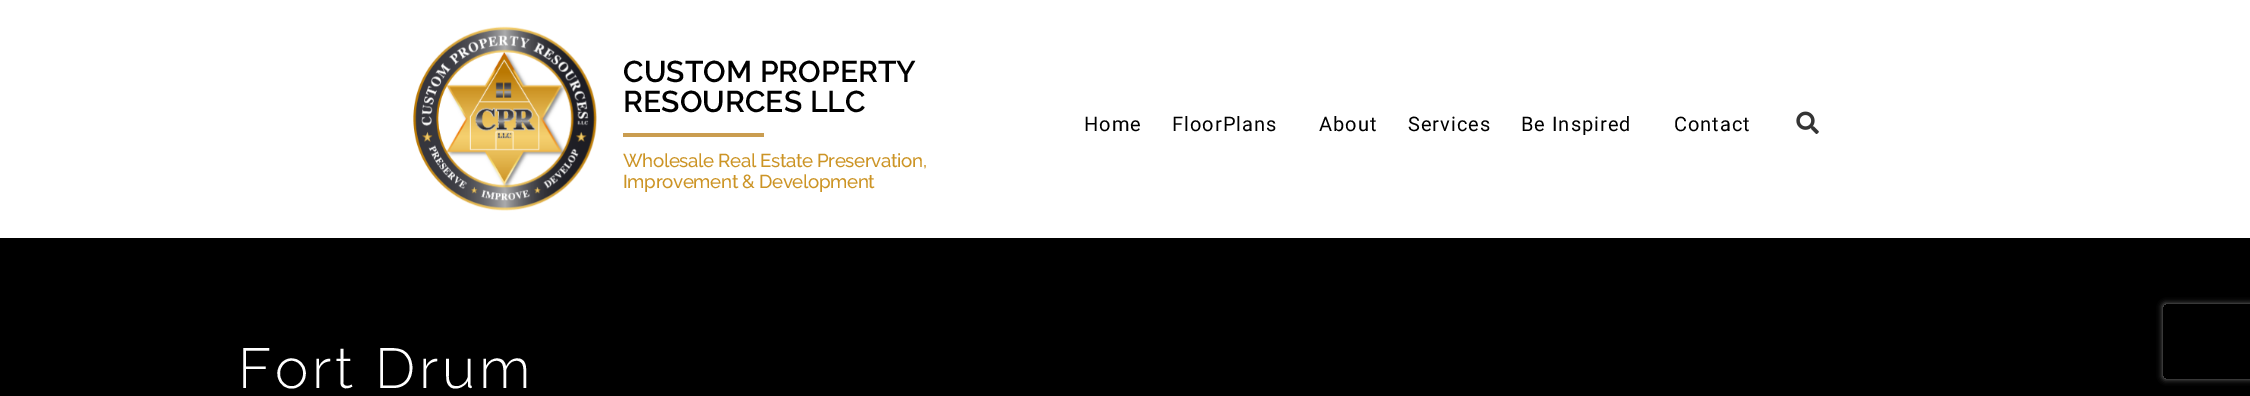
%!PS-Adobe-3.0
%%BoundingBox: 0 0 2250 396
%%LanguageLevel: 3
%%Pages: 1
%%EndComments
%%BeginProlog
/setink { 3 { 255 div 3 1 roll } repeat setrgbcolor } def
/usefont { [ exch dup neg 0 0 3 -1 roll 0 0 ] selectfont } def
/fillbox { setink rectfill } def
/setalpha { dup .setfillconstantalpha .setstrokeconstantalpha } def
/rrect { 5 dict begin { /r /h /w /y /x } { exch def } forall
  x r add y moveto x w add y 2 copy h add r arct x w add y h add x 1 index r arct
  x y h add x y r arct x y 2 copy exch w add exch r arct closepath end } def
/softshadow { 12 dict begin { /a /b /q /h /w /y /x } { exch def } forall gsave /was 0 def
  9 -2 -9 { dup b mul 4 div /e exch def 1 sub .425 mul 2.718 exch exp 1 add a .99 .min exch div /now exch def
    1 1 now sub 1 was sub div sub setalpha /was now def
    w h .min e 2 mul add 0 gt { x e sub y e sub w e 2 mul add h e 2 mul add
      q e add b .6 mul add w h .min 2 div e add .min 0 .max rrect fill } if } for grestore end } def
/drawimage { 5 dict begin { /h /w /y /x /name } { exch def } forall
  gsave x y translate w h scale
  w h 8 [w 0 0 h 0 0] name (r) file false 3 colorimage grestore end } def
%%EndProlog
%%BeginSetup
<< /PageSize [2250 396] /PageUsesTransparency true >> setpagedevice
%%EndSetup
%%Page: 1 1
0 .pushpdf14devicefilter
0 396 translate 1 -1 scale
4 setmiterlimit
0 0 2250 396 255 255 255 fillbox
(assets/img1.rgb) 413 26 184 185 drawimage
/Raleway-SemiBold 30 usefont
0 0 0 setink
623 82 moveto 0.1 0 (CUSTOM PROPERTY) ashow
623 112 moveto 0.1 0 (RESOURCES LLC) ashow
623 133 141 4 202 157 80 fillbox
/Raleway-Medium 18.75 usefont
204 148 37 setink
623 167 moveto -0.4 0 (Wholesale Real Estate Preservation,) ashow
623 188 moveto -0.4 0 (Improvement & Development) ashow
/Roboto-Regular 20 usefont
0 0 0 setink
1084 131 moveto 1 0 (Home) ashow
1172 131 moveto 1 0 (FloorPlans) ashow
1319 131 moveto 1 0 (About) ashow
1408 131 moveto 1 0 (Services) ashow
1521 131 moveto 1 0 (Be Inspired) ashow
1674 131 moveto 1 0 (Contact) ashow
(assets/img2.rgb) 1796 111 23 23 drawimage
0 238 2250 158 0 0 0 fillbox
/Raleway-Light 56.25 usefont
255 255 255 setink
238 388 moveto 3.75 0 (Fort Drum) ashow
gsave
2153 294 moveto 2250 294 lineto 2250 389 lineto 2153 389 lineto closepath 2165.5 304 moveto 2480.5 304 lineto 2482 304 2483 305 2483 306.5 curveto 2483 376.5 lineto 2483 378 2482 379 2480.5 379 curveto 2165.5 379 lineto 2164 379 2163 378 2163 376.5 curveto 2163 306.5 lineto 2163 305 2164 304 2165.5 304 curveto closepath eoclip newpath
128 128 128 setink
2163 304 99 75 2.5 3 1 softshadow
grestore
.poppdf14devicefilter showpage
%%EOF
